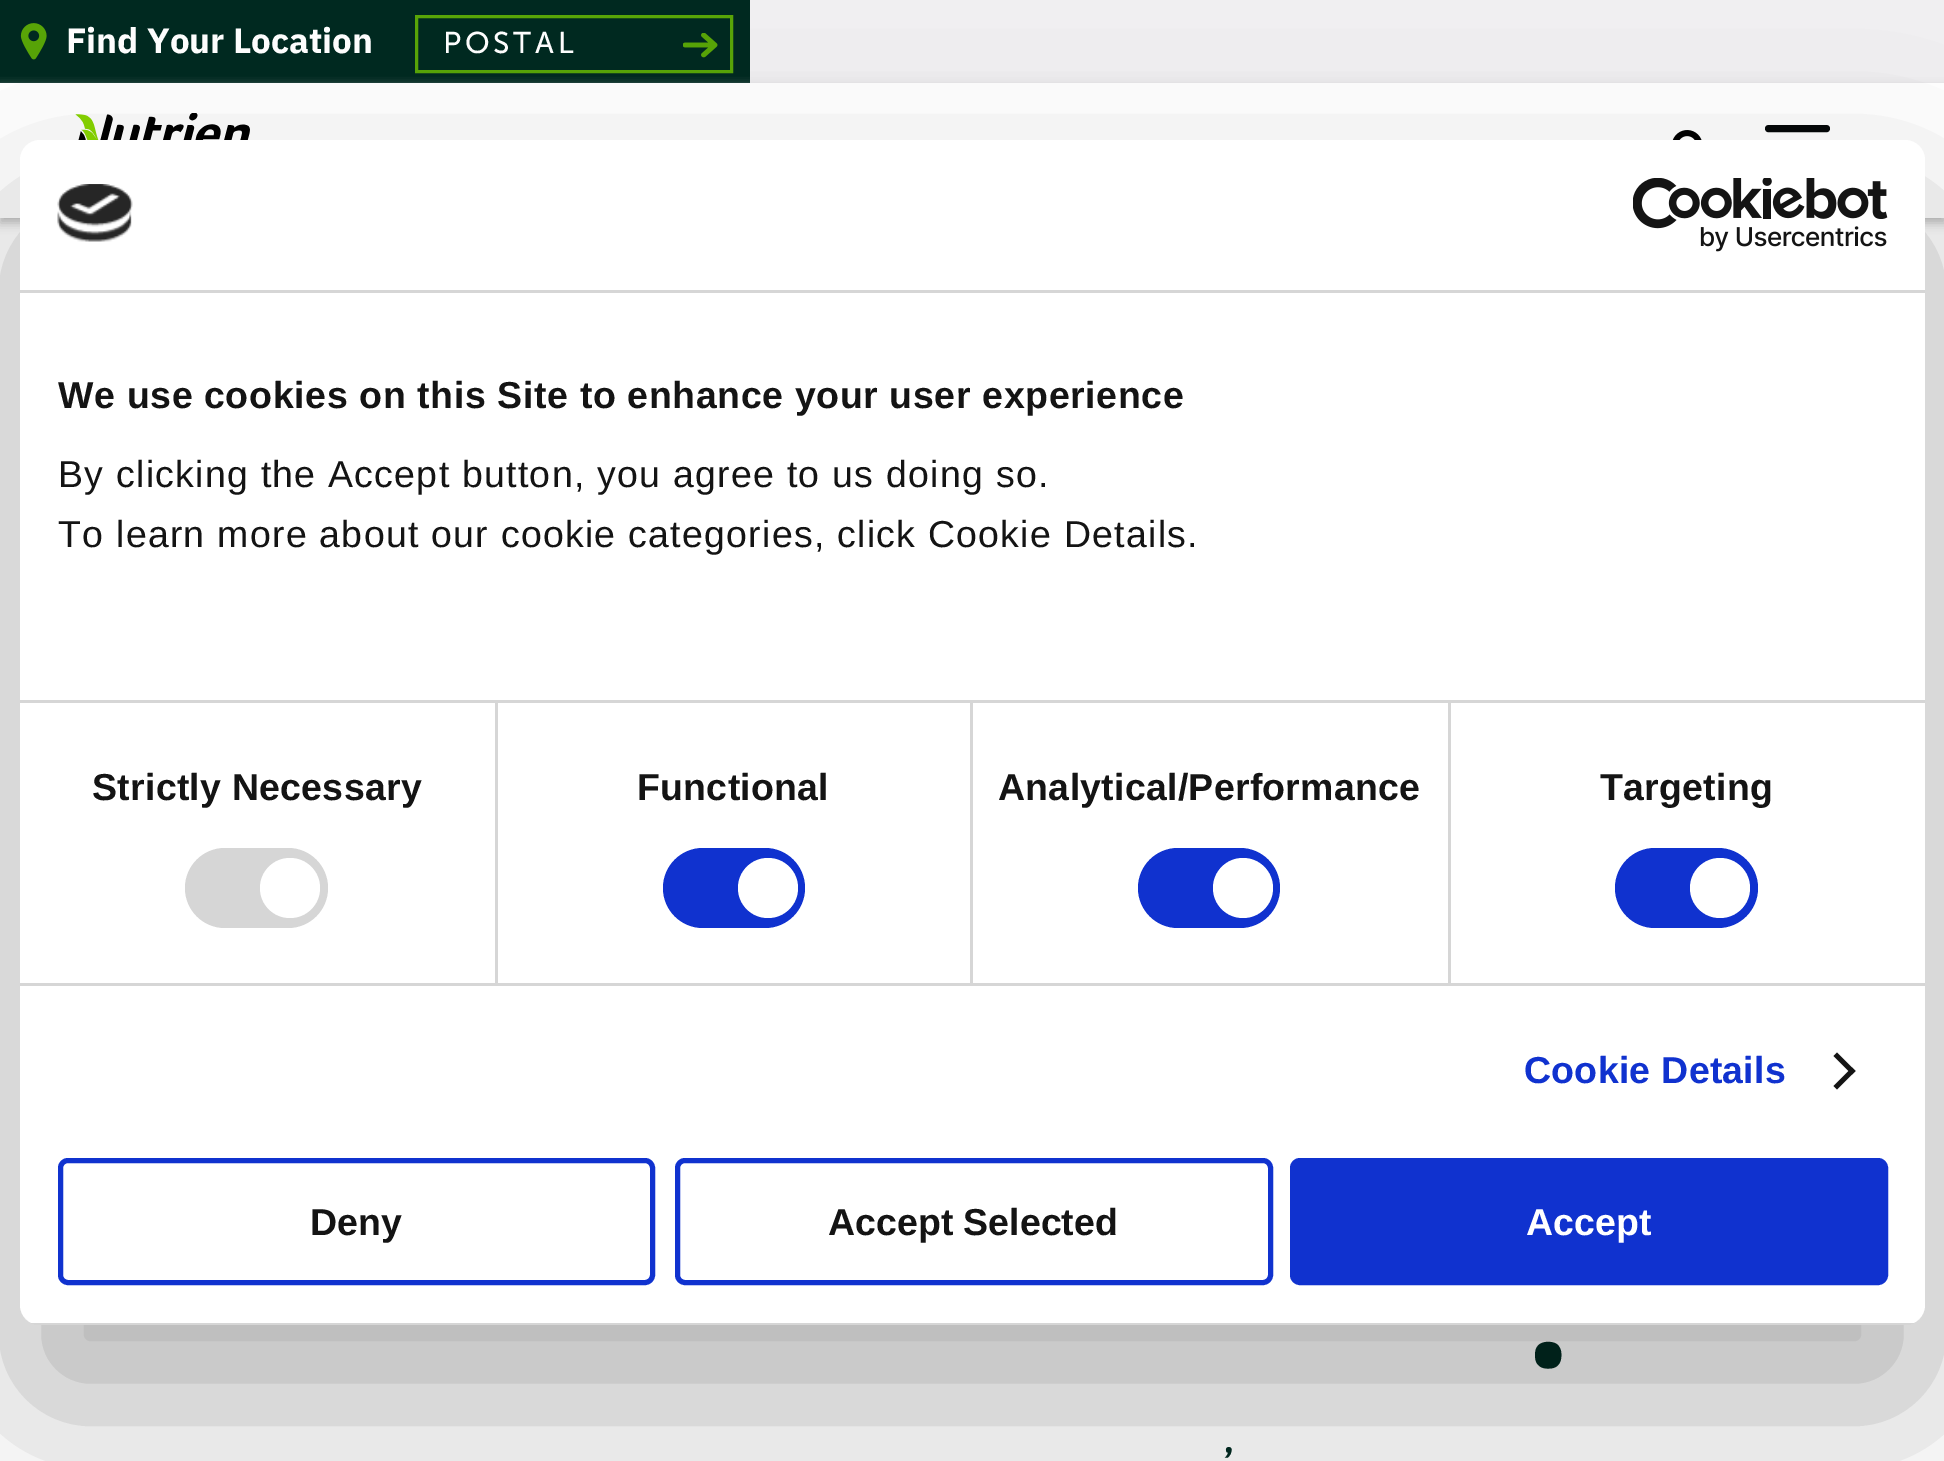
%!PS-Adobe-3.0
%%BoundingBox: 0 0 1944 1461
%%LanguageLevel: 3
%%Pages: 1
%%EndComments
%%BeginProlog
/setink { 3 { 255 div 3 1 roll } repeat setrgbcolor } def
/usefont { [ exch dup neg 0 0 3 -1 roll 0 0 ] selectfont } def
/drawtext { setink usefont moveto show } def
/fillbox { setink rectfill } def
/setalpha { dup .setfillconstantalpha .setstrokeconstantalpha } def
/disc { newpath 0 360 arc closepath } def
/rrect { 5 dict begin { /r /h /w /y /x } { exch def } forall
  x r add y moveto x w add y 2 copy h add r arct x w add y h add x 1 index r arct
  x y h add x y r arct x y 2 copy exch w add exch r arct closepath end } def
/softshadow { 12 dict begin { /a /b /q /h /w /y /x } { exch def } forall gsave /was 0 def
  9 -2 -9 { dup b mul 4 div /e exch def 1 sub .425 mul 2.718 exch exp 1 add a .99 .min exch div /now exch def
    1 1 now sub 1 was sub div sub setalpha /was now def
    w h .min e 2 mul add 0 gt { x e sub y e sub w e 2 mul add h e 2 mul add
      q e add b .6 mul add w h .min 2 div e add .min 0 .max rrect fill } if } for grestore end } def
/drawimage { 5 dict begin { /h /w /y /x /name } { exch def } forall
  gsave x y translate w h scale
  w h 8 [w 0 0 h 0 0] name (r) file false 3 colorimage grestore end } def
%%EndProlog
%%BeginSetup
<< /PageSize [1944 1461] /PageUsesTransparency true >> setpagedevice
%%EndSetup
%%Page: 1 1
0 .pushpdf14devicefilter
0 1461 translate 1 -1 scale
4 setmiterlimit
0 0 1944 1461 255 255 255 fillbox
750 0 1194 83 240 239 241 fillbox
0 0 750 83 0 41 32 fillbox
(assets/img1.rgb) 20 23 27 37 drawimage
(Find Your Location) 66 53 /IBMPlexSans-Bold 35 255 255 255 drawtext
189 189 189 setink
0 88 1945 135 0 5 1 softshadow
88 164 7 setink
3 setlinewidth
416.5 16.5 315 55 rectstroke
/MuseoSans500-Regular 30 usefont
255 255 255 setink
443 53 moveto 3.75 0 (POSTAL) ashow
(assets/img2.rgb) 683 33 35 25 drawimage
0 83 1944 135 255 255 255 fillbox
(assets/img3.rgb) 75 113 175 27 drawimage
4 7 8 setink
7 setlinewidth
1 setlinecap
1768.5 128.5 moveto 1826.5 128.5 lineto stroke
(assets/img4.rgb) 1672 130 30 10 drawimage
(.) 1525 1367 /IBMPlexSans-Bold 150 0 41 32 drawtext
(’) 1223 1477 /IBMPlexSans-Medium 40 0 41 32 drawtext
0 0 0 setink
20 220 1905 1185 20 85 0.3 softshadow
255 255 255 setink
20 140 1905 1185 20 rrect fill
20 290 1905 3 214 214 214 fillbox
(assets/img5.rgb) 57 184 76 58 drawimage
(assets/img6.rgb) 1633 178 255 74 drawimage
20 700 1905 3 214 214 214 fillbox
/LiberationSans-Bold 37.5 usefont
20 20 20 setink
58 408 moveto 0.62 0 (We use cookies on this Site to enhance your user experience) ashow
/LiberationSans-Regular 37.5 usefont
58 487 moveto 1.25 0 (By clicking the Accept button, you agree to us doing so.) ashow
58 547 moveto 1.25 0 (To learn more about our cookie categories, click Cookie Details.) ashow
20 983 1905 3 214 214 214 fillbox
495 703 3 280 214 214 214 fillbox
/LiberationSans-Bold 37.5 usefont
20 20 20 setink
92 800 moveto 0.25 0 (Strictly Necessary) ashow
214 214 214 setink
185 848 143 80 40 rrect fill
255 255 255 setink
290 888 30 disc fill
970 703 3 280 214 214 214 fillbox
20 20 20 setink
637 800 moveto 0.25 0 (Functional) ashow
16 50 207 setink
663 848 142 80 40 rrect fill
255 255 255 setink
768 888 30 disc fill
1448 703 3 280 214 214 214 fillbox
20 20 20 setink
998 800 moveto 0.25 0 (Analytical/Performance) ashow
16 50 207 setink
1138 848 142 80 40 rrect fill
255 255 255 setink
1243 888 30 disc fill
20 20 20 setink
1600 800 moveto 0.25 0 (Targeting) ashow
16 50 207 setink
1615 848 143 80 40 rrect fill
255 255 255 setink
1720 888 30 disc fill
16 50 207 setink
1524 1083 moveto 0.25 0 (Cookie Details) ashow
20 20 20 setink
1837 1052.5 moveto 1855.5 1071 lineto 1852 1074.5 lineto 1833.5 1056 lineto closepath fill
1852 1067.5 moveto 1855.5 1071 lineto 1837 1089.5 lineto 1833.5 1086 lineto closepath fill
gsave
20 140 1905 1185 20 rrect clip newpath
31 1323 1883 2 214 214 214 fillbox
grestore
16 50 207 setink
5 setlinewidth
0 setlinecap
60.5 1160.5 592 122 7.5 rrect stroke
(Deny) 310 1235 /LiberationSans-Bold 37.5 20 20 20 drawtext
16 50 207 setink
677.5 1160.5 593 122 7.5 rrect stroke
(Accept Selected) 828 1235 /LiberationSans-Bold 37.5 20 20 20 drawtext
16 50 207 setink
1292.5 1160.5 593 122 7.5 rrect gsave fill grestore
stroke
(Accept) 1526 1235 /LiberationSans-Bold 37.5 255 255 255 drawtext
.poppdf14devicefilter showpage
%%EOF
